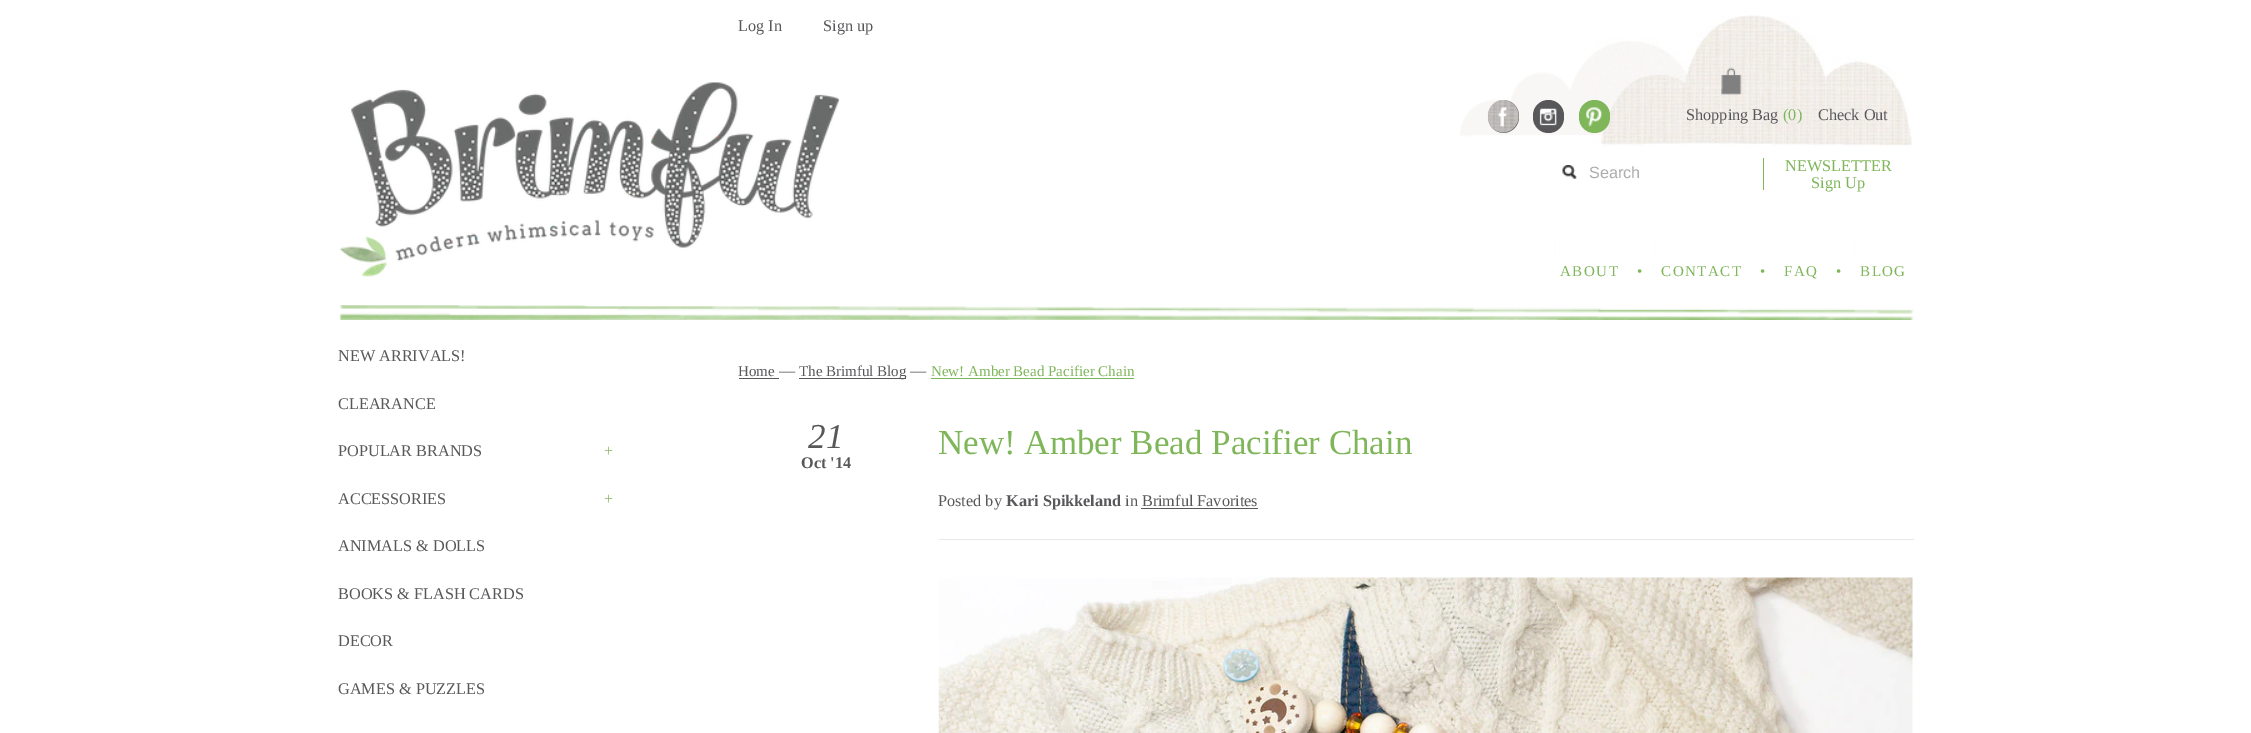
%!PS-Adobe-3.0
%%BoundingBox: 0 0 2251 733
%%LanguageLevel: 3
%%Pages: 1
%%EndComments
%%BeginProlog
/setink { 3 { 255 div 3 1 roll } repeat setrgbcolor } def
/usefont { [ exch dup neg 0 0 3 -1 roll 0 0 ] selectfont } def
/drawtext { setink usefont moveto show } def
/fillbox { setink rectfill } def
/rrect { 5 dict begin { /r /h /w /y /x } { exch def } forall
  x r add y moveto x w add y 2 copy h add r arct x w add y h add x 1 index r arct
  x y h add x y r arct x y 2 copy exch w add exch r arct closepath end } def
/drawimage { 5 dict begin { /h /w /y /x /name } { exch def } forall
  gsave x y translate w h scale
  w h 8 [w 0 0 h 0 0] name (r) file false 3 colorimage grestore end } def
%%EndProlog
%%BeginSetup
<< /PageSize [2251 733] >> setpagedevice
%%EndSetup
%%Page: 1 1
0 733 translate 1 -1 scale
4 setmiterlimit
0 0 2251 733 255 255 255 fillbox
(assets/img1.rgb) 1460 15 453 132 drawimage
(Log In) 738 31 /LiberationSerif-Regular 16.25 88 88 91 drawtext
(Sign up) 823 31 /LiberationSerif-Regular 16.25 88 88 91 drawtext
(assets/img2.rgb) 1721 67 21 28 drawimage
1488 100 31 33 15.5 rrect fill
(assets/img3.rgb) 1487 100 32 33 drawimage
(assets/img4.rgb) 1498 107 9 20 drawimage
1533 100 31 33 15.5 rrect fill
(assets/img5.rgb) 1539 108 18 18 drawimage
127 182 90 setink
1579 100 31 33 15.5 rrect fill
(assets/img6.rgb) 1586 107 16 20 drawimage
(Shopping Bag) 1686 120 /LiberationSerif-Regular 16.25 88 88 91 drawtext
(\(0\)) 1783 120 /LiberationSerif-Regular 16.25 127 182 90 drawtext
(Check Out) 1818 120 /LiberationSerif-Regular 16.25 88 88 91 drawtext
(assets/img7.rgb) 339 305 1575 15 drawimage
(assets/img8.rgb) 340 82 499 195 drawimage
(assets/img9.rgb) 1562 165 15 14 drawimage
(Search) 1589 178 /LiberationSans-Regular 16.25 172 172 173 drawtext
1763 158 1 32 127 182 90 fillbox
(NEWSLETTER) 1785 171 /LiberationSerif-Regular 16.25 127 182 90 drawtext
(Sign Up) 1811 188 /LiberationSerif-Regular 16.25 127 182 90 drawtext
/LiberationSerif-Regular 15 usefont
1560 276 moveto 1.5 0 (ABOUT) ashow
1554 238 1 19 252 255 249 fillbox
(•) 1637 276 /LiberationSerif-Regular 15 127 182 90 drawtext
1661 276 moveto 1.5 0 (CONTACT) ashow
1655 238 1 19 252 255 249 fillbox
(•) 1760 276 /LiberationSerif-Regular 15 127 182 90 drawtext
1784 276 moveto 1.5 0 (FAQ) ashow
1778 239 1 17 252 255 250 fillbox
(•) 1836 276 /LiberationSerif-Regular 15 127 182 90 drawtext
1860 276 moveto 1.5 0 (BLOG) ashow
1854 238 1 19 252 255 249 fillbox
(NEW ARRIVALS!) 338 361 /LiberationSerif-Regular 16.25 88 88 91 drawtext
(CLEARANCE) 338 409 /LiberationSerif-Regular 16.25 88 88 91 drawtext
(POPULAR BRANDS) 338 456 /LiberationSerif-Regular 16.25 88 88 91 drawtext
(+) 604 456 /LiberationSerif-Regular 16.25 127 182 90 drawtext
(ACCESSORIES) 338 504 /LiberationSerif-Regular 16.25 88 88 91 drawtext
(+) 604 504 /LiberationSerif-Regular 16.25 127 182 90 drawtext
(ANIMALS & DOLLS) 338 551 /LiberationSerif-Regular 16.25 88 88 91 drawtext
(BOOKS & FLASH CARDS) 338 599 /LiberationSerif-Regular 16.25 88 88 91 drawtext
(DECOR) 338 646 /LiberationSerif-Regular 16.25 88 88 91 drawtext
(GAMES & PUZZLES) 338 694 /LiberationSerif-Regular 16.25 88 88 91 drawtext
(Home) 738 376 /LiberationSerif-Regular 15 88 88 91 drawtext
739 378 40 1 88 88 91 fillbox
(—) 779 376 /LiberationSerif-Regular 16.25 88 88 91 drawtext
799 378 107 1 88 88 91 fillbox
(The Brimful Blog) 799 376 /LiberationSerif-Regular 15 88 88 91 drawtext
(—) 910 376 /LiberationSerif-Regular 16.25 88 88 91 drawtext
(New! Amber Bead Pacifier Chain) 931 376 /LiberationSerif-Regular 15 127 182 90 drawtext
931 378 203 1 127 182 90 fillbox
(21) 808 448 /LiberationSerif-Italic 35 88 88 91 drawtext
(Oct '14) 801 468 /LiberationSerif-Bold 16.25 88 88 91 drawtext
(New! Amber Bead Pacifier Chain) 938 454 /LiberationSerif-Regular 35 127 182 90 drawtext
939 539 975 1 232 232 232 fillbox
(Posted by) 938 506 /LiberationSerif-Regular 16.25 88 88 91 drawtext
(Kari Spikkeland) 1006 506 /LiberationSerif-Bold 16.25 88 88 91 drawtext
(in Brimful Favorites) 1125 506 /LiberationSerif-Regular 16.25 88 88 91 drawtext
1141 508 117 1 88 88 91 fillbox
(assets/img10.rgb) 938 577 975 156 drawimage
showpage
%%EOF
